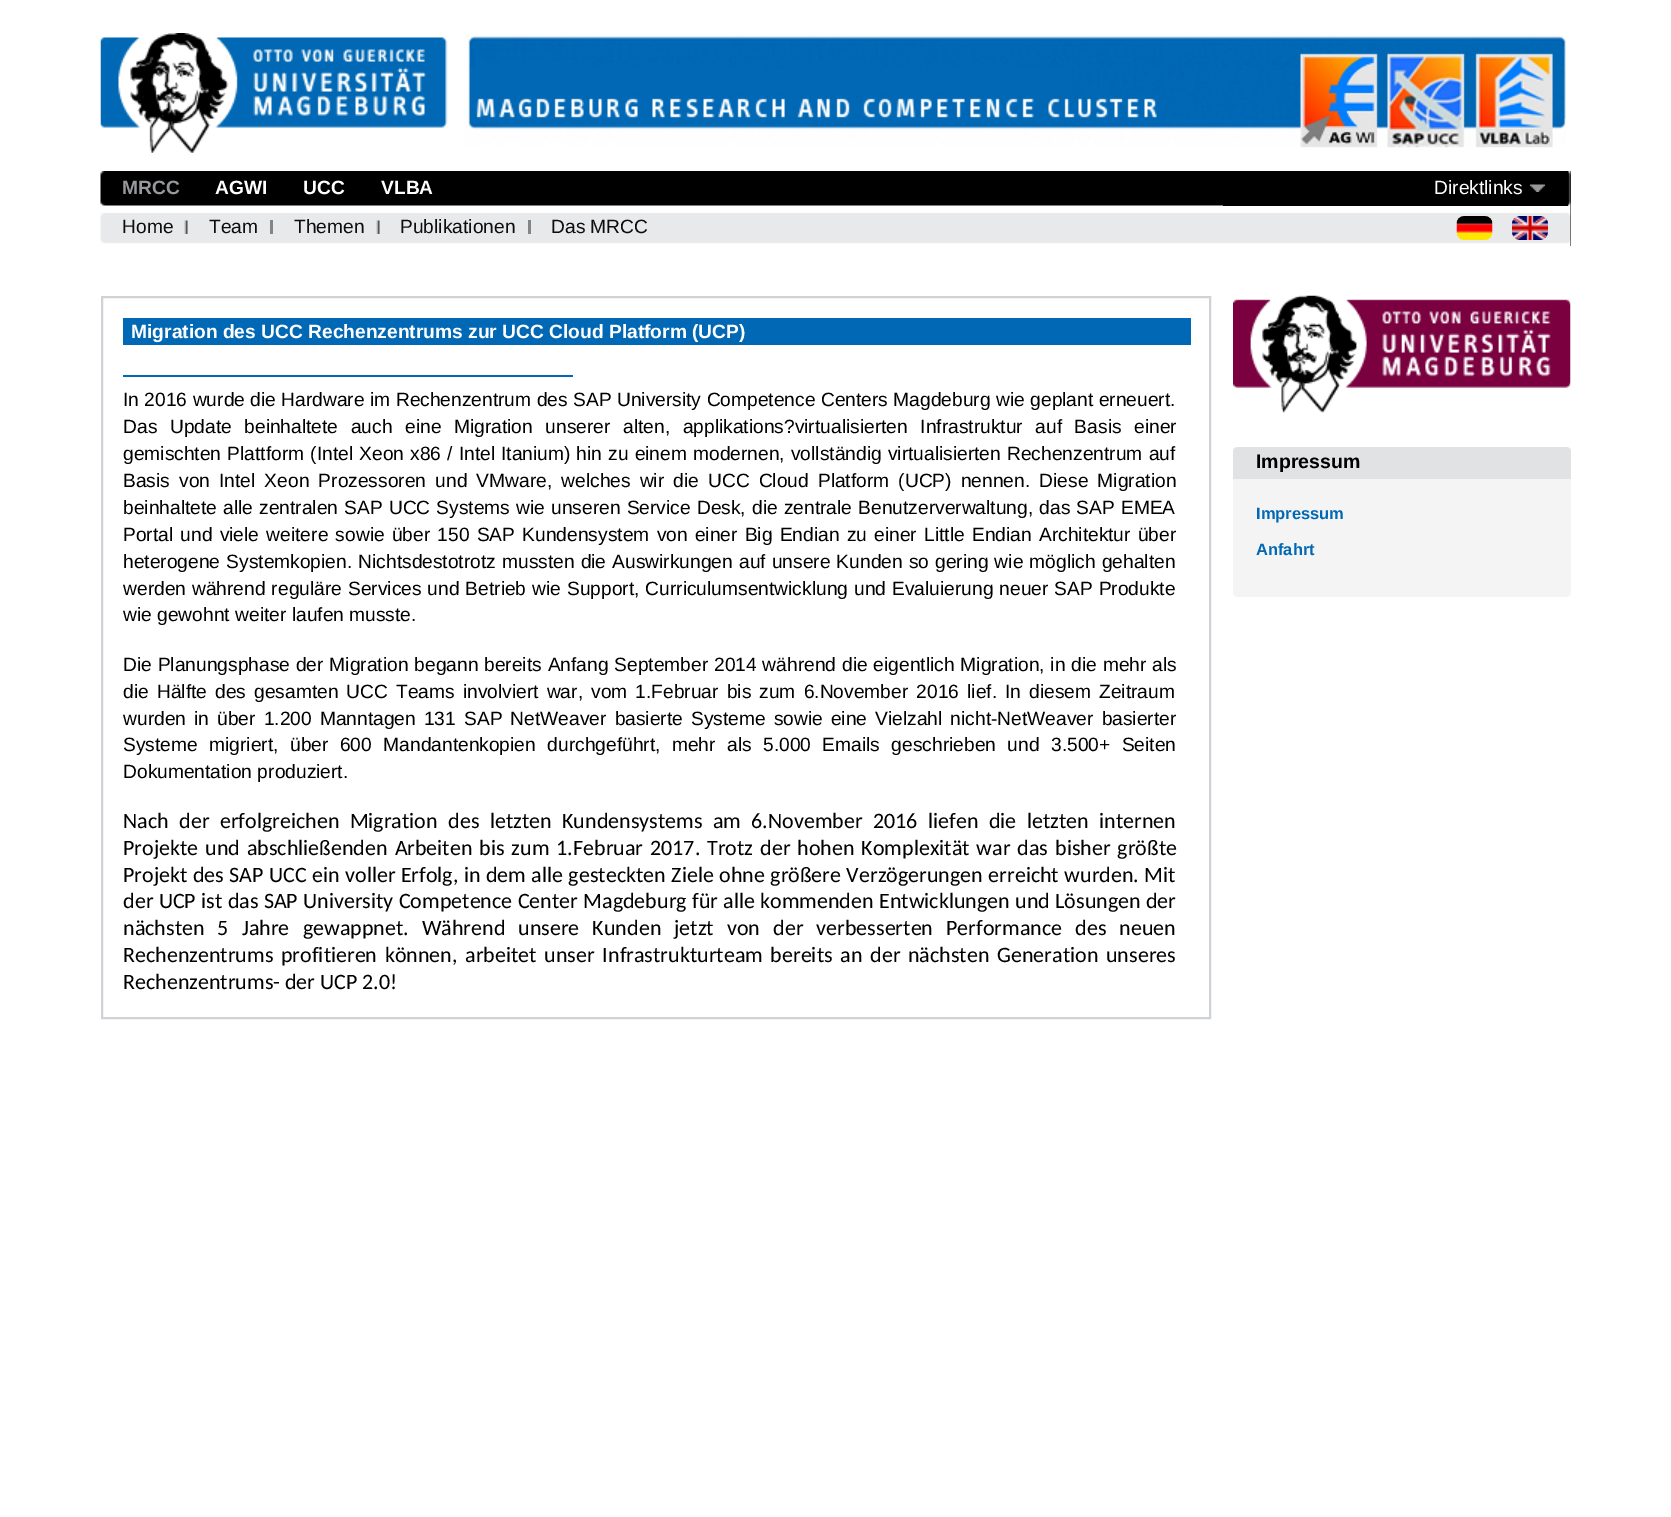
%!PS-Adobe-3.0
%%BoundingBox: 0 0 1671 1517
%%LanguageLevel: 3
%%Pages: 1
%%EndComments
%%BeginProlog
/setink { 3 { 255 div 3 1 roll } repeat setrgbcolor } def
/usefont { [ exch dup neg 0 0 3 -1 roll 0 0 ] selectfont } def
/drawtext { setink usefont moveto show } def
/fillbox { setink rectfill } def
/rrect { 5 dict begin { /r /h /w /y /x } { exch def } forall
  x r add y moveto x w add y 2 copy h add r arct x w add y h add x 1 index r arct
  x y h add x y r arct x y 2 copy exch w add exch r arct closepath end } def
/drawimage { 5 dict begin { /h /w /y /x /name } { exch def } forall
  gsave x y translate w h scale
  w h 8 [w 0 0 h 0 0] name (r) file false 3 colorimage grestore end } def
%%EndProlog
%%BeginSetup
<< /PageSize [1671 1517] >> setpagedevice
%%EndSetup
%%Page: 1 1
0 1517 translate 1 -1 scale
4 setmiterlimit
0 0 1671 1517 255 255 255 fillbox
(assets/img1.rgb) 100 33 348 120 drawimage
(assets/img2.rgb) 464 35 1102 113 drawimage
1570 171 1 75 0 0 0 fillbox
(assets/img3.rgb) 100 171 1471 75 drawimage
(MRCC) 122 194 /LiberationSans-Bold 19.2 150 153 156 drawtext
(assets/img4.rgb) 184 220 4 14 drawimage
(Home) 122 233 /LiberationSans-Regular 19.2 13 13 13 drawtext
270 220 3 14 131 133 134 fillbox
(Team) 209 233 /LiberationSans-Regular 19.2 13 13 13 drawtext
(assets/img4.rgb) 376 220 4 14 drawimage
(Themen) 294 233 /LiberationSans-Regular 19.2 13 13 13 drawtext
528 220 3 14 131 133 134 fillbox
(Publikationen) 400 233 /LiberationSans-Regular 19.2 13 13 13 drawtext
(Das MRCC) 551 233 /LiberationSans-Regular 19.2 13 13 13 drawtext
(AGWI) 215 194 /LiberationSans-Bold 19.2 255 255 255 drawtext
(UCC) 303 194 /LiberationSans-Bold 19.2 255 255 255 drawtext
(VLBA) 381 194 /LiberationSans-Bold 19.2 255 255 255 drawtext
1223 171 345 35 0 0 0 fillbox
(assets/img5.rgb) 1530 184 15 8 drawimage
(Direktlinks) 1434 194 /LiberationSans-Regular 19.2 255 255 255 drawtext
(assets/img6.rgb) 1456 216 37 24 drawimage
(assets/img7.rgb) 1512 216 36 24 drawimage
207 211 214 setink
2 setlinewidth
102 297 1108 721 rectstroke
123 318 1068 27 0 104 180 fillbox
(Migration des UCC Rechenzentrums zur UCC Cloud Platform \(UCP\)) 131 338 /LiberationSans-Bold 19.2 255 255 255 drawtext
123 375 450 2 0 104 180 fillbox
/LiberationSans-Regular 19.2 usefont
0 0 0 setink
123 406 moveto 0.1 0 32 (In 2016 wurde die Hardware im Rechenzentrum des SAP University Competence Centers Magdeburg wie geplant erneuert.) widthshow
123 433 moveto 7.25 0 32 (Das Update beinhaltete auch eine Migration unserer alten, applikations?virtualisierten Infrastruktur auf Basis einer) widthshow
123 460 moveto 0.8 0 32 (gemischten Plattform \(Intel Xeon x86 / Intel Itanium\) hin zu einem modernen, vollständig virtualisierten Rechenzentrum auf) widthshow
123 487 moveto 3.75 0 32 (Basis von Intel Xeon Prozessoren und VMware, welches wir die UCC Cloud Platform \(UCP\) nennen. Diese Migration) widthshow
123 514 moveto 0.8 0 32 (beinhaltete alle zentralen SAP UCC Systems wie unseren Service Desk, die zentrale Benutzerverwaltung, das SAP EMEA) widthshow
123 541 moveto 1.9 0 32 (Portal und viele weitere sowie über 150 SAP Kundensystem von einer Big Endian zu einer Little Endian Architektur über) widthshow
123 568 moveto 0.75 0 32 (heterogene Systemkopien. Nichtsdestotrotz mussten die Auswirkungen auf unsere Kunden so gering wie möglich gehalten) widthshow
123 595 moveto 0.6 0 32 (werden während reguläre Services und Betrieb wie Support, Curriculumsentwicklung und Evaluierung neuer SAP Produkte) widthshow
(wie gewohnt weiter laufen musste.) 123 621 /LiberationSans-Regular 19.2 0 0 0 drawtext
123 671 moveto 0.5 0 32 (Die Planungsphase der Migration begann bereits Anfang September 2014 während die eigentlich Migration, in die mehr als) widthshow
123 698 moveto 2.75 0 32 (die Hälfte des gesamten UCC Teams involviert war, vom 1.Februar bis zum 6.November 2016 lief. In diesem Zeitraum) widthshow
123 725 moveto 2.75 0 32 (wurden in über 1.200 Manntagen 131 SAP NetWeaver basierte Systeme sowie eine Vielzahl nicht-NetWeaver basierter) widthshow
123 751 moveto 6.1 0 32 (Systeme migriert, über 600 Mandantenkopien durchgeführt, mehr als 5.000 Emails geschrieben und 3.500+ Seiten) widthshow
(Dokumentation produziert.) 123 778 /LiberationSans-Regular 19.2 0 0 0 drawtext
/Carlito-Regular 22 usefont
123 828 moveto 5.5 0 32 (Nach der erfolgreichen Migration des letzten Kundensystems am 6.November 2016 liefen die letzten internen) widthshow
123 855 moveto 2 0 32 (Projekte und abschließenden Arbeiten bis zum 1.Februar 2017. Trotz der hohen Komplexität war das bisher größte) widthshow
123 882 moveto 0.5 0 32 (Projekt des SAP UCC ein voller Erfolg, in dem alle gesteckten Ziele ohne größere Verzögerungen erreicht wurden. Mit) widthshow
123 908 moveto 0.4 0 32 (der UCP ist das SAP University Competence Center Magdeburg für alle kommenden Entwicklungen und Lösungen der) widthshow
123 935 moveto 8.1 0 32 (nächsten 5 Jahre gewappnet. Während unsere Kunden jetzt von der verbesserten Performance des neuen) widthshow
123 962 moveto 2.75 0 32 (Rechenzentrums profitieren können, arbeitet unser Infrastrukturteam bereits an der nächsten Generation unseres) widthshow
(Rechenzentrums- der UCP 2.0!) 123 989 /Carlito-Regular 22 0 0 0 drawtext
(assets/img8.rgb) 1233 295 338 118 drawimage
244 244 244 setink
1233 447 338 150 5 rrect fill
224 226 227 setink
1238 447 moveto 1566 447 lineto 1569 447 1571 449 1571 452 curveto 1571 480 lineto 1233 480 lineto 1233 452 lineto 1233 449 1235 447 1238 447 curveto closepath fill
1233 479 338 1 244 244 244 fillbox
(Impressum) 1256 468 /LiberationSans-Bold 19.5 0 0 0 drawtext
(Impressum) 1256 519 /LiberationSans-Bold 16.5 0 104 180 drawtext
(Anfahrt) 1256 555 /LiberationSans-Bold 16.5 0 104 180 drawtext
showpage
%%EOF
